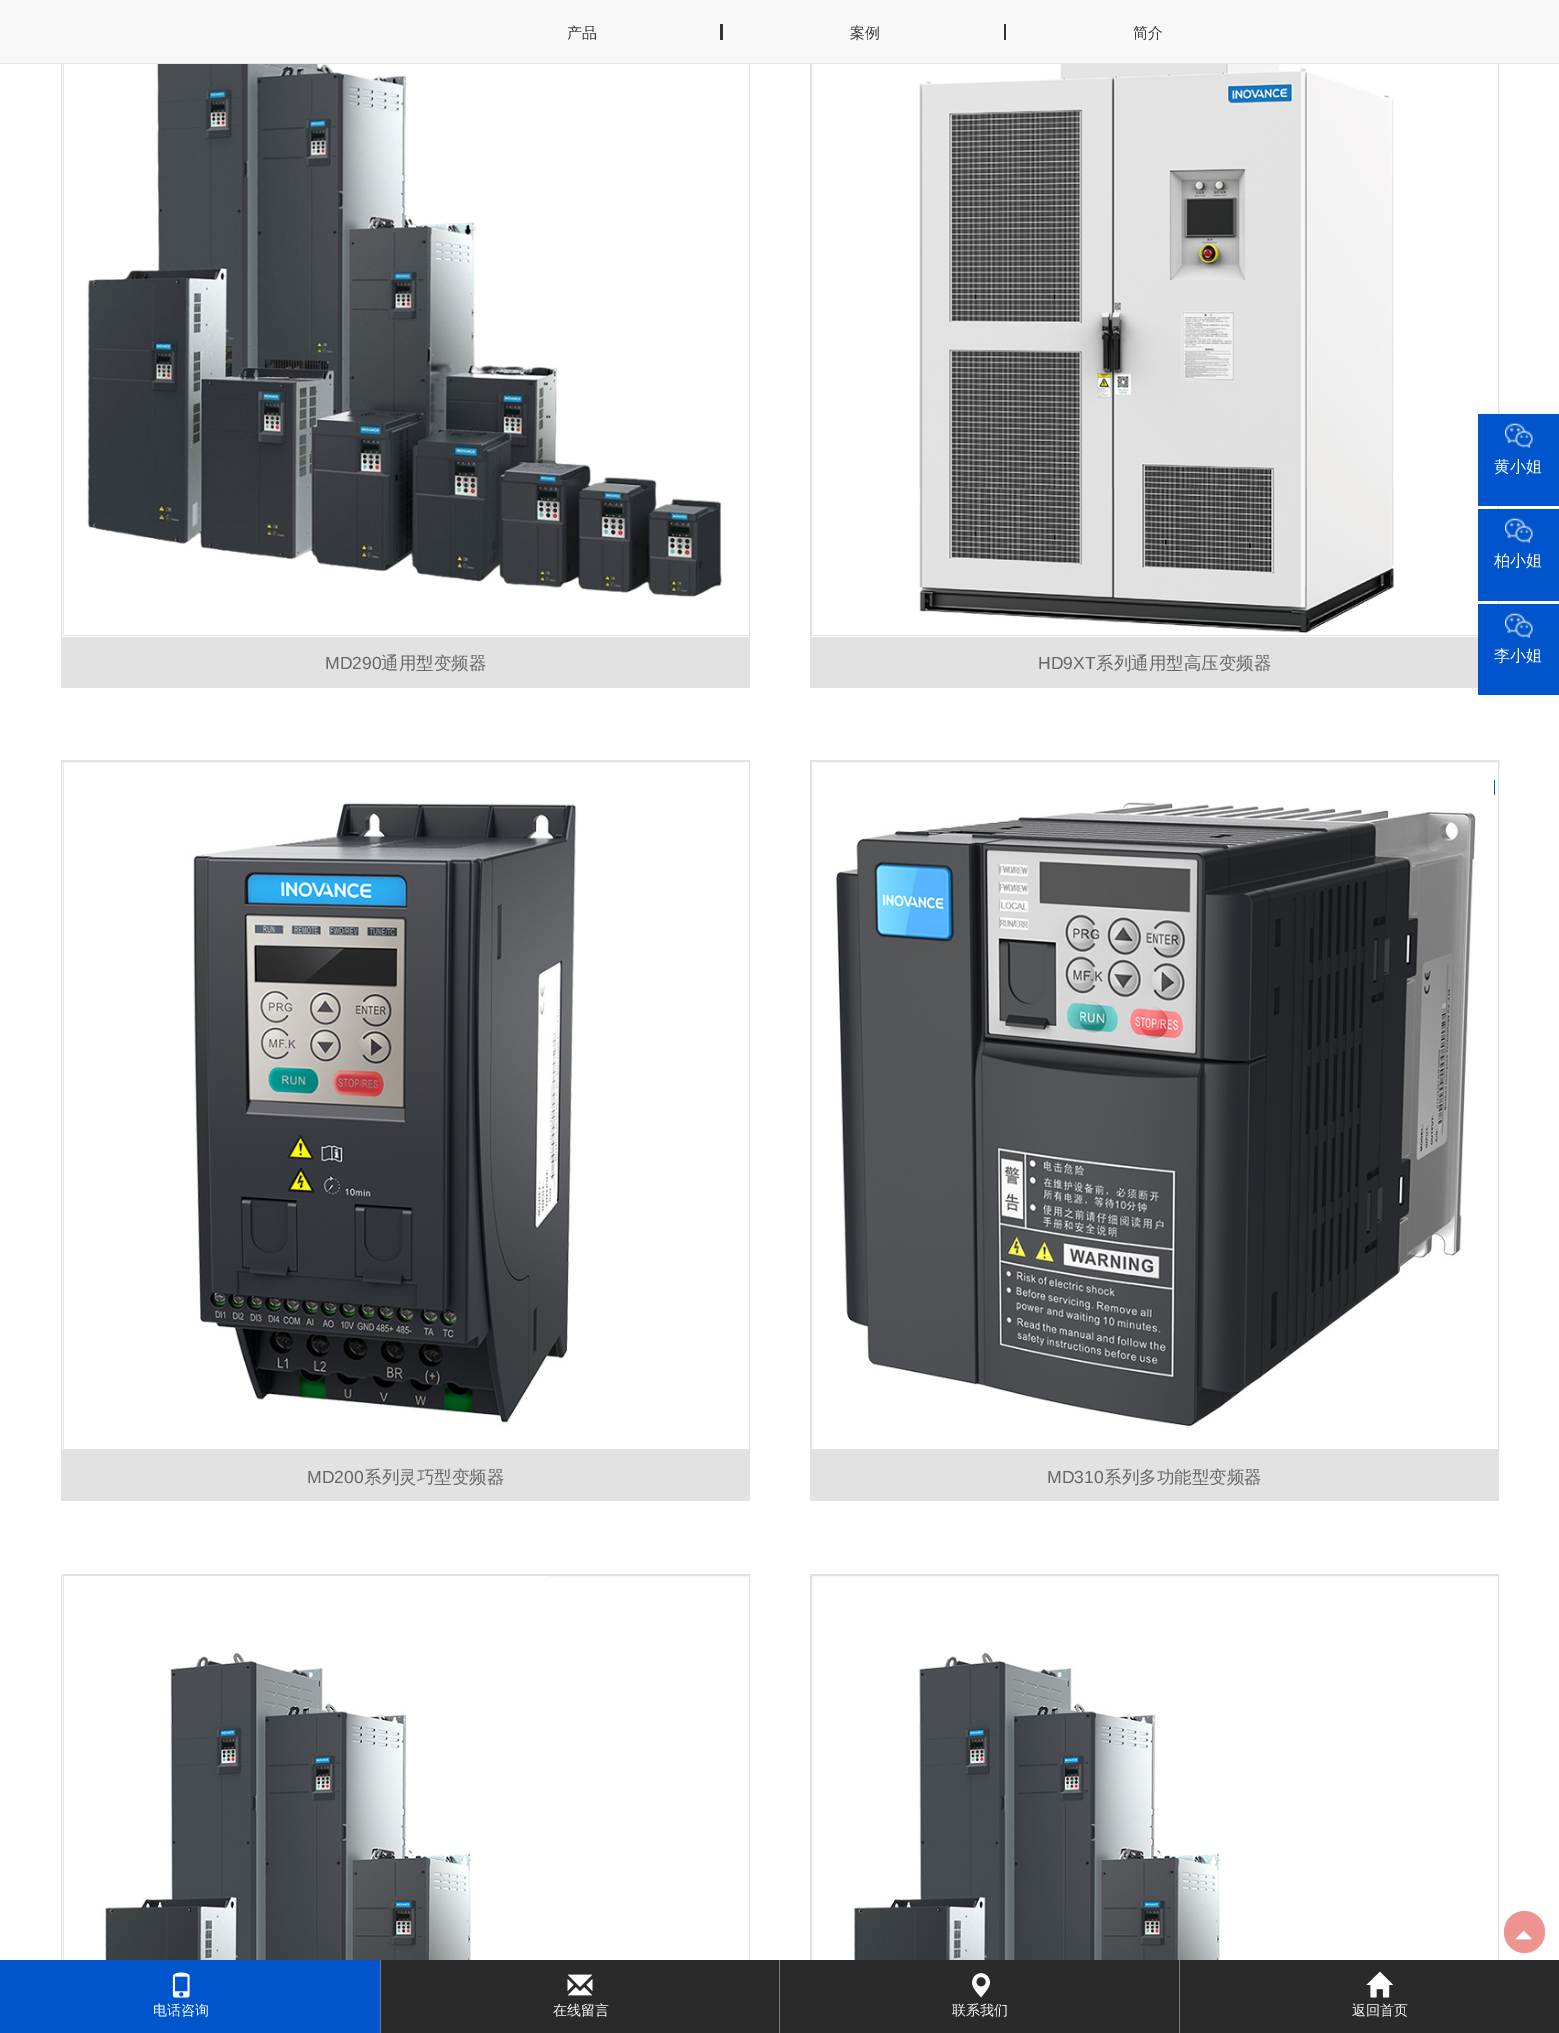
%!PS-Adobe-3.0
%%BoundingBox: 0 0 1559 2033
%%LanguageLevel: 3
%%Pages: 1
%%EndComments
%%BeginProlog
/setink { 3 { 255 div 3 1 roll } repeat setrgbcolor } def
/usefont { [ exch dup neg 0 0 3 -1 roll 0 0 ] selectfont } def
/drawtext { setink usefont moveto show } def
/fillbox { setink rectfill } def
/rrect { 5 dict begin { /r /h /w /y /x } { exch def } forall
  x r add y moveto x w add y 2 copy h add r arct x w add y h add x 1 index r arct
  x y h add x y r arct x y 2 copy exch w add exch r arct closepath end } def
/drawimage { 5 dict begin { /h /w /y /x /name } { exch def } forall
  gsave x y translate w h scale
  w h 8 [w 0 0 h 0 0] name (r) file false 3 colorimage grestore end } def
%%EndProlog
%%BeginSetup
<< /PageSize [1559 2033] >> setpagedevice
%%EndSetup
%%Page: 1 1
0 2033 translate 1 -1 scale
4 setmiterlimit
0 0 1559 2033 255 255 255 fillbox
226 226 226 setink
61.5 -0.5 688 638 rectstroke
gsave
63 0 686 636 rectclip
63.5 -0.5 687 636 rectstroke
grestore
810.5 -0.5 688 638 rectstroke
gsave
811 0 687 636 rectclip
811.5 -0.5 688 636 rectstroke
grestore
0 63 1559 1 231 231 231 fillbox
0 0 1559 63 248 248 248 fillbox
(产品) 567 38 /WenQuanYiZenHei-Medium 15 58 58 58 drawtext
720 24 3 16 51 51 51 fillbox
(案例) 850 38 /WenQuanYiZenHei-Medium 15 58 58 58 drawtext
1004 24 2 16 51 51 51 fillbox
(简介) 1133 38 /WenQuanYiZenHei-Medium 15 58 58 58 drawtext
1478 414 81 92 0 85 204 fillbox
(assets/img1.rgb) 1505 423 28 25 drawimage
(黄小姐) 1494 472 /WenQuanYiZenHei-Medium 16 255 255 255 drawtext
1478 509 81 92 0 85 204 fillbox
(assets/img2.rgb) 1505 518 28 25 drawimage
(柏小姐) 1494 566 /WenQuanYiZenHei-Medium 16 255 255 255 drawtext
1478 604 81 91 0 85 204 fillbox
(assets/img3.rgb) 1505 613 28 25 drawimage
(李小姐) 1494 661 /WenQuanYiZenHei-Medium 16 255 255 255 drawtext
226 226 226 setink
810.5 760.5 688 690 rectstroke
gsave
811 761 687 689 rectclip
811.5 761.5 688 688 rectstroke
grestore
1494 780 1 15 0 85 204 fillbox
238 148 144 setink
1504 1911 41 42 20.5 rrect fill
(assets/img4.rgb) 1515 1931 17 9 drawimage
226 226 226 setink
61.5 1574.5 688 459 rectstroke
gsave
63 1575 686 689 rectclip
63.5 1575.5 687 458 rectstroke
grestore
810.5 1574.5 688 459 rectstroke
gsave
811 1575 687 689 rectclip
811.5 1575.5 688 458 rectstroke
grestore
381 1960 1178 73 42 42 42 fillbox
0 1960 380 73 0 85 204 fillbox
(assets/img5.rgb) 172 1972 18 26 drawimage
(电话咨询) 153 2015 /WenQuanYiZenHei-Medium 14 255 255 255 drawtext
380 1960 1 73 123 123 123 fillbox
(assets/img6.rgb) 567 1974 26 22 drawimage
(在线留言) 553 2015 /WenQuanYiZenHei-Medium 14 255 255 255 drawtext
779 1960 1 73 123 123 123 fillbox
(assets/img7.rgb) 972 1973 18 25 drawimage
(联系我们) 952 2015 /WenQuanYiZenHei-Medium 14 255 255 255 drawtext
1179 1960 1 73 123 123 123 fillbox
(assets/img8.rgb) 1366 1971 27 27 drawimage
(返回首页) 1352 2015 /WenQuanYiZenHei-Medium 14 255 255 255 drawtext
(assets/img9.rgb) 63 64 659 571 drawimage
61 638 689 50 226 226 226 fillbox
(MD290) 325 669 /LiberationSans-Regular 17.5 102 102 102 drawtext
(通用型变频器) 381 669 /WenQuanYiZenHei-Medium 17.5 102 102 102 drawtext
(assets/img10.rgb) 919 64 475 570 drawimage
810 638 668 50 226 226 226 fillbox
(HD9XT) 1038 669 /LiberationSans-Regular 17.5 102 102 102 drawtext
(系列通用型高压变频器) 1096 669 /WenQuanYiZenHei-Medium 17.5 102 102 102 drawtext
226 226 226 setink
61.5 760.5 688 690 rectstroke
gsave
63 761 686 689 rectclip
63.5 761.5 687 688 rectstroke
grestore
(assets/img11.rgb) 63 763 514 686 drawimage
61 1451 689 50 226 226 226 fillbox
(MD200) 307 1483 /LiberationSans-Regular 17.5 102 102 102 drawtext
(系列灵巧型变频器) 364 1483 /WenQuanYiZenHei-Medium 17.5 102 102 102 drawtext
(assets/img12.rgb) 835 802 641 625 drawimage
810 1451 689 50 226 226 226 fillbox
(MD310) 1047 1483 /LiberationSans-Regular 17.5 102 102 102 drawtext
(系列多功能型变频器) 1104 1483 /WenQuanYiZenHei-Medium 17.5 102 102 102 drawtext
(assets/img13.rgb) 63 1576 486 384 drawimage
(assets/img14.rgb) 853 1652 445 308 drawimage
showpage
%%EOF
